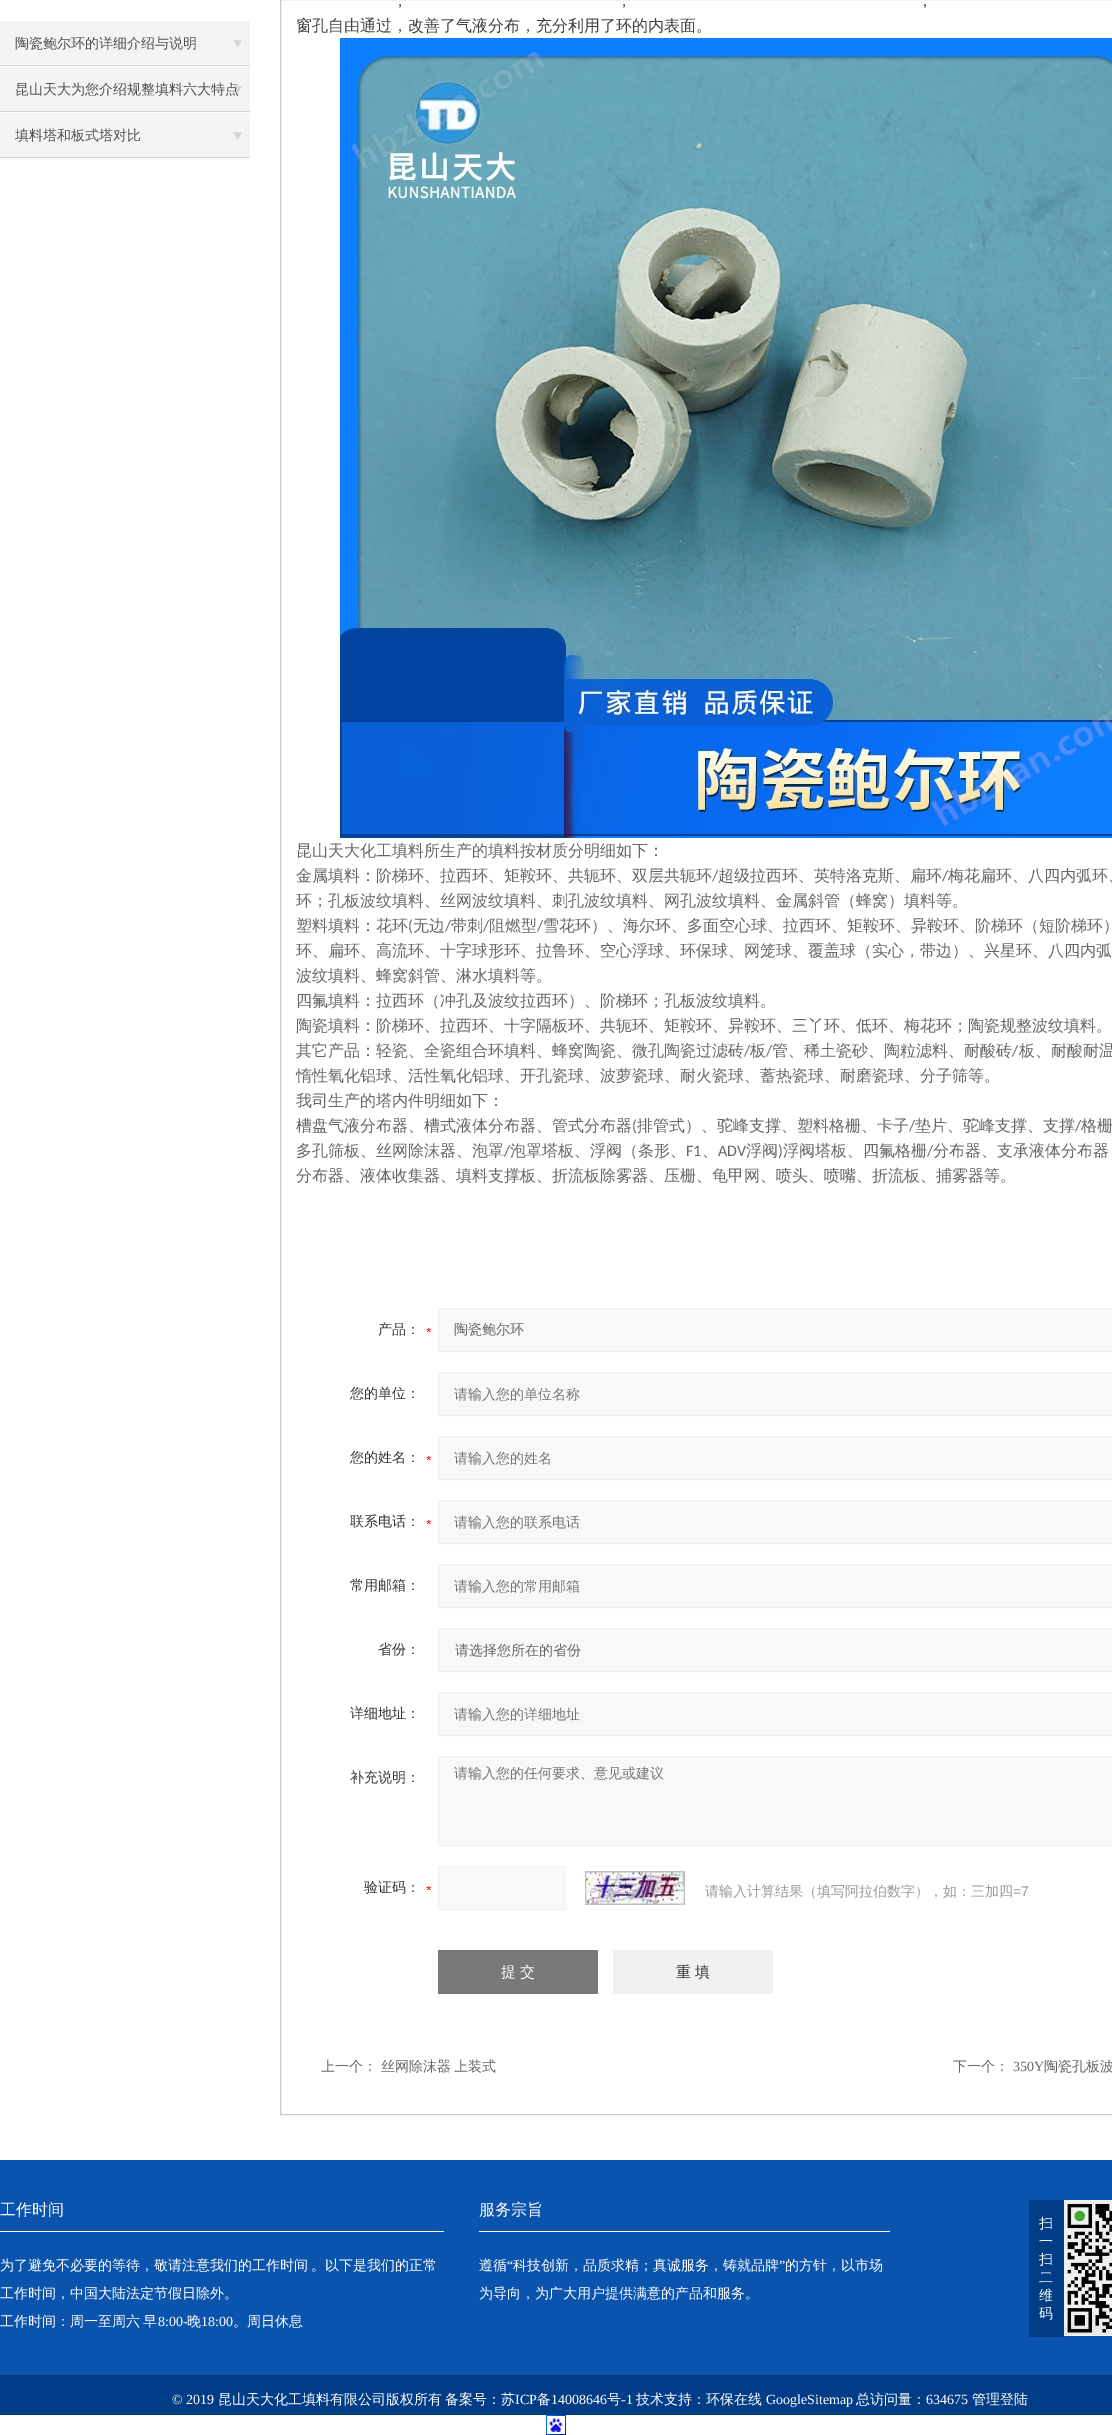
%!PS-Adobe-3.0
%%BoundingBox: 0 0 1112 2435
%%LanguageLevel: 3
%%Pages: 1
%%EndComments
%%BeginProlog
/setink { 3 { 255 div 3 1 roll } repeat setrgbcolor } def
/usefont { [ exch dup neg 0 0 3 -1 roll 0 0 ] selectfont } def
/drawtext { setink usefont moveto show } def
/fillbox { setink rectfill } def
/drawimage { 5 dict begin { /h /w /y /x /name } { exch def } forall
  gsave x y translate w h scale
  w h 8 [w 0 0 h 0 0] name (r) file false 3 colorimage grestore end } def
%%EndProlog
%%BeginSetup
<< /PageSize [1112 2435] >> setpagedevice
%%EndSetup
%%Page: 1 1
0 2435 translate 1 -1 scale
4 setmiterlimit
0 0 1112 2435 255 255 255 fillbox
(assets/img1.rgb) 0 21 250 45 drawimage
(陶瓷鲍尔环的详细介绍与说明) 15 48 /WenQuanYiZenHei-Medium 14 81 81 81 drawtext
(assets/img1.rgb) 0 67 250 45 drawimage
(昆山天大为您介绍规整填料六大特点) 15 94 /WenQuanYiZenHei-Medium 14 81 81 81 drawtext
(assets/img1.rgb) 0 113 250 45 drawimage
(填料塔和板式塔对比) 15 140 /WenQuanYiZenHei-Medium 14 81 81 81 drawtext
201 201 201 setink
280.5 -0.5 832 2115 rectstroke
(，) 392 6 /WenQuanYiZenHei-Medium 16 63 63 63 drawtext
(，) 616 6 /WenQuanYiZenHei-Medium 16 63 63 63 drawtext
(，) 917 6 /WenQuanYiZenHei-Medium 16 63 63 63 drawtext
(窗孔自由通过，改善了气液分布，充分利用了环的内表面。) 296 31 /WenQuanYiZenHei-Medium 16 63 63 63 drawtext
(assets/img2.rgb) 340 38 772 800 drawimage
(昆山天大化工填料所生产的填料按材质分明细如下：) 296 856 /WenQuanYiZenHei-Medium 16 102 102 102 drawtext
(金属填料：阶梯环、拉西环、矩鞍环、共轭环、双层共轭环) 296 881 /WenQuanYiZenHei-Medium 16 102 102 102 drawtext
(/) 712 881 /Carlito-Regular 16 102 102 102 drawtext
(超级拉西环、英特洛克斯、扁环) 718 881 /WenQuanYiZenHei-Medium 16 102 102 102 drawtext
(/) 942 881 /Carlito-Regular 16 102 102 102 drawtext
(梅花扁环、八四内弧环、) 948 881 /WenQuanYiZenHei-Medium 16 102 102 102 drawtext
(环；孔板波纹填料、丝网波纹填料、刺孔波纹填料、网孔波纹填料、金属斜管（蜂窝）填料等。) 296 906 /WenQuanYiZenHei-Medium 16 102 102 102 drawtext
(塑料填料：花环 无边) 296 931 /WenQuanYiZenHei-Medium 16 102 102 102 drawtext
(/) 445 931 /Carlito-Regular 16 102 102 102 drawtext
(带刺) 451 931 /WenQuanYiZenHei-Medium 16 102 102 102 drawtext
(阻燃型) 489 931 /WenQuanYiZenHei-Medium 16 102 102 102 drawtext
(雪花环）、海尔环、多面空心球、拉西环、矩鞍环、异鞍环、阶梯环（短阶梯环）) 543 931 /WenQuanYiZenHei-Medium 16 102 102 102 drawtext
(\() 408 931 /Carlito-Regular 16 102 102 102 drawtext
(/) 483 931 /Carlito-Regular 16 102 102 102 drawtext
(/) 537 931 /Carlito-Regular 16 102 102 102 drawtext
(环、扁环、高流环、十字球形环、拉鲁环、空心浮球、环保球、网笼球、覆盖球（实心，带边）、兴星环、八四内弧) 296 956 /WenQuanYiZenHei-Medium 16 102 102 102 drawtext
(波纹填料、蜂窝斜管、淋水填料等。) 296 981 /WenQuanYiZenHei-Medium 16 102 102 102 drawtext
(四氟填料：拉西环（冲孔及波纹拉西环）、阶梯环；孔板波纹填料。) 296 1006 /WenQuanYiZenHei-Medium 16 102 102 102 drawtext
(陶瓷填料：阶梯环、拉西环、十字隔板环、共轭环、矩鞍环、异鞍环、三丫环、低环、梅花环；陶瓷规整波纹填料。) 296 1031 /WenQuanYiZenHei-Medium 16 102 102 102 drawtext
(其它产品：轻瓷、全瓷组合环填料、蜂窝陶瓷、微孔陶瓷过滤砖) 296 1056 /WenQuanYiZenHei-Medium 16 102 102 102 drawtext
(/) 744 1056 /Carlito-Regular 16 102 102 102 drawtext
(板) 750 1056 /WenQuanYiZenHei-Medium 16 102 102 102 drawtext
(/) 766 1056 /Carlito-Regular 16 102 102 102 drawtext
(管、稀土瓷砂、陶粒滤料、耐酸砖) 772 1056 /WenQuanYiZenHei-Medium 16 102 102 102 drawtext
(/) 1012 1056 /Carlito-Regular 16 102 102 102 drawtext
(板、耐酸耐温) 1019 1056 /WenQuanYiZenHei-Medium 16 102 102 102 drawtext
(惰性氧化铝球、活性氧化铝球、开孔瓷球、波萝瓷球、耐火瓷球、蓄热瓷球、耐磨瓷球、分子筛等。) 296 1081 /WenQuanYiZenHei-Medium 16 102 102 102 drawtext
(我司生产的塔内件明细如下：) 296 1106 /WenQuanYiZenHei-Medium 16 102 102 102 drawtext
(槽盘气液分布器、槽式液体分布器、管式分布器) 296 1131 /WenQuanYiZenHei-Medium 16 102 102 102 drawtext
(\() 632 1131 /Carlito-Regular 16 102 102 102 drawtext
(排管式）、驼峰支撑、塑料格栅、卡子) 637 1131 /WenQuanYiZenHei-Medium 16 102 102 102 drawtext
(/) 909 1131 /Carlito-Regular 16 102 102 102 drawtext
(垫片、驼峰支撑、支撑) 915 1131 /WenQuanYiZenHei-Medium 16 102 102 102 drawtext
(/) 1075 1131 /Carlito-Regular 16 102 102 102 drawtext
(格栅) 1081 1131 /WenQuanYiZenHei-Medium 16 102 102 102 drawtext
(多孔筛板、丝网除沫器、泡罩) 296 1156 /WenQuanYiZenHei-Medium 16 102 102 102 drawtext
(/) 504 1156 /Carlito-Regular 16 102 102 102 drawtext
(泡罩塔板、浮阀（条形、) 510 1156 /WenQuanYiZenHei-Medium 16 102 102 102 drawtext
(浮阀 浮阀塔板、四氟格栅) 746 1156 /WenQuanYiZenHei-Medium 16 102 102 102 drawtext
(分布器、支承液体分布器) 933 1156 /WenQuanYiZenHei-Medium 16 102 102 102 drawtext
(F1) 686 1156 /Carlito-Regular 16 102 102 102 drawtext
(、) 702 1156 /WenQuanYiZenHei-Medium 16 102 102 102 drawtext
(ADV) 718 1156 /Carlito-Regular 16 102 102 102 drawtext
(\)) 778 1156 /Carlito-Regular 16 102 102 102 drawtext
(/) 927 1156 /Carlito-Regular 16 102 102 102 drawtext
(分布器、液体收集器、填料支撑板、折流板除雾器、压栅、龟甲网、喷头、喷嘴、折流板、捕雾器等。) 296 1181 /WenQuanYiZenHei-Medium 16 102 102 102 drawtext
(assets/img3.rgb) 426 1328 5 4 drawimage
(产品：) 378 1334 /WenQuanYiZenHei-Medium 14 51 51 51 drawtext
248 248 248 setink
438.5 1308.5 moveto 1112.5 1308.5 lineto 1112.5 1351.5 lineto 438.5 1351.5 lineto closepath gsave fill grestore
241 241 241 setink
stroke
(陶瓷鲍尔环) 454 1334 /WenQuanYiZenHei-Medium 14 102 102 102 drawtext
(您的单位：) 350 1398 /WenQuanYiZenHei-Medium 14 51 51 51 drawtext
248 248 248 setink
438.5 1372.5 moveto 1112.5 1372.5 lineto 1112.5 1415.5 lineto 438.5 1415.5 lineto closepath gsave fill grestore
241 241 241 setink
stroke
(请输入您的单位名称) 454 1399 /WenQuanYiZenHei-Medium 14 117 117 117 drawtext
(assets/img3.rgb) 426 1456 5 4 drawimage
(您的姓名：) 350 1462 /WenQuanYiZenHei-Medium 14 51 51 51 drawtext
248 248 248 setink
438.5 1436.5 moveto 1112.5 1436.5 lineto 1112.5 1479.5 lineto 438.5 1479.5 lineto closepath gsave fill grestore
241 241 241 setink
stroke
(请输入您的姓名) 454 1463 /WenQuanYiZenHei-Medium 14 117 117 117 drawtext
(assets/img3.rgb) 426 1520 5 4 drawimage
(联系电话：) 350 1526 /WenQuanYiZenHei-Medium 14 51 51 51 drawtext
248 248 248 setink
438.5 1500.5 moveto 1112.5 1500.5 lineto 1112.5 1543.5 lineto 438.5 1543.5 lineto closepath gsave fill grestore
241 241 241 setink
stroke
(请输入您的联系电话) 454 1527 /WenQuanYiZenHei-Medium 14 117 117 117 drawtext
(常用邮箱：) 350 1590 /WenQuanYiZenHei-Medium 14 51 51 51 drawtext
248 248 248 setink
438.5 1564.5 moveto 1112.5 1564.5 lineto 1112.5 1607.5 lineto 438.5 1607.5 lineto closepath gsave fill grestore
241 241 241 setink
stroke
(请输入您的常用邮箱) 454 1591 /WenQuanYiZenHei-Medium 14 117 117 117 drawtext
(省份：) 378 1654 /WenQuanYiZenHei-Medium 14 51 51 51 drawtext
248 248 248 setink
438.5 1628.5 moveto 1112.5 1628.5 lineto 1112.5 1671.5 lineto 438.5 1671.5 lineto closepath gsave fill grestore
241 241 241 setink
stroke
(请选择您所在的省份) 455 1655 /WenQuanYiZenHei-Medium 14 102 102 102 drawtext
(详细地址：) 350 1718 /WenQuanYiZenHei-Medium 14 51 51 51 drawtext
248 248 248 setink
438.5 1692.5 moveto 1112.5 1692.5 lineto 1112.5 1735.5 lineto 438.5 1735.5 lineto closepath gsave fill grestore
241 241 241 setink
stroke
(请输入您的详细地址) 454 1719 /WenQuanYiZenHei-Medium 14 117 117 117 drawtext
(补充说明：) 350 1782 /WenQuanYiZenHei-Medium 14 51 51 51 drawtext
248 248 248 setink
438.5 1756.5 moveto 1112.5 1756.5 lineto 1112.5 1845.5 lineto 438.5 1845.5 lineto closepath gsave fill grestore
241 241 241 setink
stroke
(请输入您的任何要求、意见或建议) 454 1778 /WenQuanYiZenHei-Medium 14 117 117 117 drawtext
(assets/img3.rgb) 426 1886 5 4 drawimage
(验证码：) 364 1892 /WenQuanYiZenHei-Medium 14 51 51 51 drawtext
248 248 248 setink
438.5 1866.5 moveto 564.5 1866.5 lineto 564.5 1909.5 lineto 438.5 1909.5 lineto closepath gsave fill grestore
241 241 241 setink
stroke
(assets/img4.rgb) 585 1871 100 34 drawimage
(请输入计算结果（填写阿拉伯数字），如：三加四) 705 1896 /WenQuanYiZenHei-Medium 14 153 153 153 drawtext
(=7) 1013 1896 /LiberationSans-Regular 14 153 153 153 drawtext
438 1950 160 44 121 121 121 fillbox
(提 交) 501 1977 /WenQuanYiZenHei-Medium 15 255 255 255 drawtext
613 1950 160 44 240 240 240 fillbox
(重 填) 676 1977 /WenQuanYiZenHei-Medium 15 51 51 51 drawtext
(上一个：) 321 2071 /WenQuanYiZenHei-Medium 14 102 102 102 drawtext
381 2071 moveto -1 0 32 (丝网除沫器 上装式) widthshow
(下一个：) 953 2071 /WenQuanYiZenHei-Medium 14 102 102 102 drawtext
(350Y) 1013 2071 /LiberationSerif-Regular 14 102 102 102 drawtext
(陶瓷孔板波) 1044 2071 /WenQuanYiZenHei-Medium 14 102 102 102 drawtext
0 2160 1112 215 10 84 173 fillbox
0 2231 444 1 255 255 255 fillbox
(工作时间) 0 2215 /WenQuanYiZenHei-Medium 16 255 255 255 drawtext
/WenQuanYiZenHei-Medium 14 usefont
0 2270 moveto -1 0 32 (为了避免不必要的等待，敬请注意我们的工作时间 。以下是我们的正常) widthshow
(工作时间，中国大陆法定节假日除外。) 0 2298 /WenQuanYiZenHei-Medium 14 255 255 255 drawtext
0 2326 moveto -1 0 32 (工作时间：周一至周六 早) widthshow
(8:00-) 158 2326 /LiberationSerif-Regular 14 255 255 255 drawtext
(晚) 187 2326 /WenQuanYiZenHei-Medium 14 255 255 255 drawtext
(18:00) 201 2326 /LiberationSerif-Regular 14 255 255 255 drawtext
(。周日休息) 233 2326 /WenQuanYiZenHei-Medium 14 255 255 255 drawtext
479 2231 411 1 255 255 255 fillbox
(服务宗旨) 479 2215 /WenQuanYiZenHei-Medium 16 255 255 255 drawtext
(遵循) 479 2270 /WenQuanYiZenHei-Medium 14 255 255 255 drawtext
(“) 507 2270 /LiberationSerif-Regular 14 255 255 255 drawtext
(科技创新，品质求精；真诚服务，铸就品牌) 513 2270 /WenQuanYiZenHei-Medium 14 255 255 255 drawtext
(”) 779 2270 /LiberationSerif-Regular 14 255 255 255 drawtext
(的方针，以市场) 785 2270 /WenQuanYiZenHei-Medium 14 255 255 255 drawtext
(为导向，为广大用户提供满意的产品和服务。) 479 2298 /WenQuanYiZenHei-Medium 14 255 255 255 drawtext
1029 2200 35 137 0 61 134 fillbox
(扫) 1039 2228 /WenQuanYiZenHei-Medium 14 255 255 255 drawtext
(一) 1039 2246 /WenQuanYiZenHei-Medium 14 255 255 255 drawtext
(扫) 1039 2264 /WenQuanYiZenHei-Medium 14 255 255 255 drawtext
(二) 1039 2282 /WenQuanYiZenHei-Medium 14 255 255 255 drawtext
(维) 1039 2300 /WenQuanYiZenHei-Medium 14 255 255 255 drawtext
(码) 1039 2318 /WenQuanYiZenHei-Medium 14 255 255 255 drawtext
(assets/img5.rgb) 1064 2200 48 136 drawimage
0 2375 1112 40 0 61 134 fillbox
(© 2019) 172 2404 /LiberationSerif-Regular 14 255 255 255 drawtext
(昆山天大化工填料有限公司版权所有) 218 2404 /WenQuanYiZenHei-Medium 14 255 255 255 drawtext
(备案号：苏) 445 2404 /WenQuanYiZenHei-Medium 14 255 255 255 drawtext
(ICP) 515 2404 /LiberationSerif-Regular 14 255 255 255 drawtext
(备) 537 2404 /WenQuanYiZenHei-Medium 14 255 255 255 drawtext
(14008646) 551 2404 /LiberationSerif-Regular 14 255 255 255 drawtext
(号) 607 2404 /WenQuanYiZenHei-Medium 14 255 255 255 drawtext
(-1) 621 2404 /LiberationSerif-Regular 14 255 255 255 drawtext
(技术支持：环保在线) 636 2404 /WenQuanYiZenHei-Medium 14 255 255 255 drawtext
(GoogleSitemap) 766 2404 /LiberationSerif-Regular 14 255 255 255 drawtext
(总访问量：) 856 2404 /WenQuanYiZenHei-Medium 14 255 255 255 drawtext
(634675) 926 2404 /LiberationSerif-Regular 14 255 255 255 drawtext
(管理登陆) 972 2404 /WenQuanYiZenHei-Medium 14 255 255 255 drawtext
(assets/img6.rgb) 546 2415 20 20 drawimage
showpage
%%EOF
